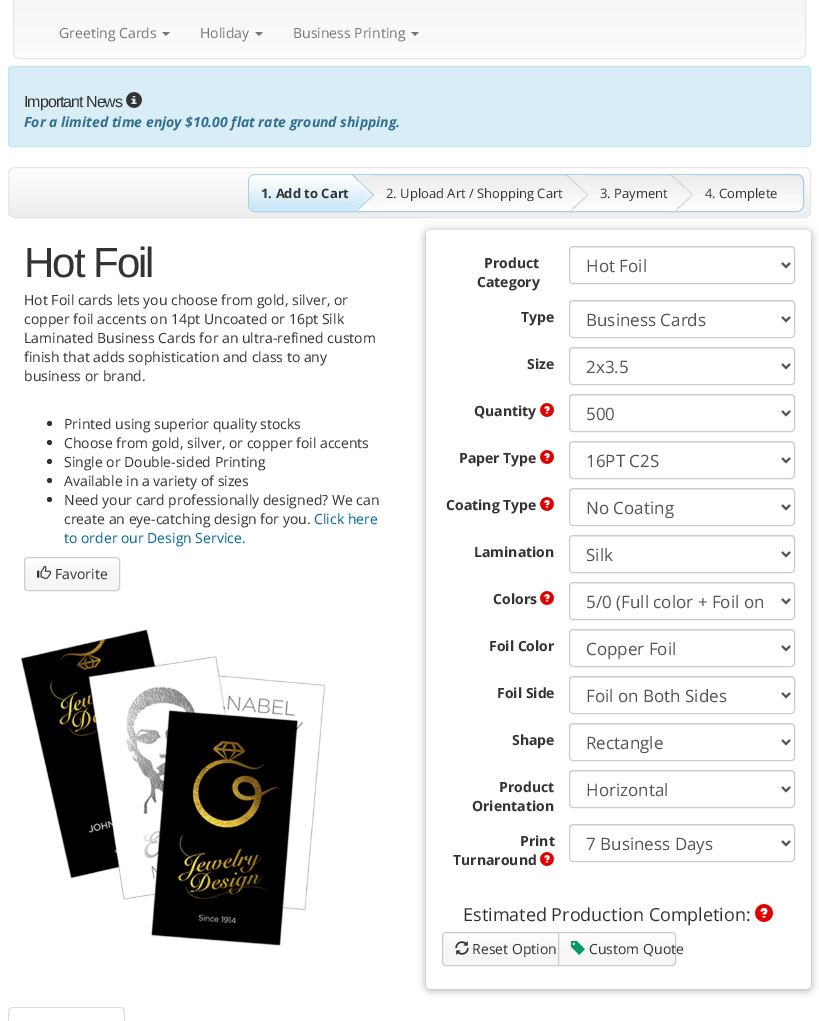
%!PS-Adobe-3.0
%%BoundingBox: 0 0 819 1021
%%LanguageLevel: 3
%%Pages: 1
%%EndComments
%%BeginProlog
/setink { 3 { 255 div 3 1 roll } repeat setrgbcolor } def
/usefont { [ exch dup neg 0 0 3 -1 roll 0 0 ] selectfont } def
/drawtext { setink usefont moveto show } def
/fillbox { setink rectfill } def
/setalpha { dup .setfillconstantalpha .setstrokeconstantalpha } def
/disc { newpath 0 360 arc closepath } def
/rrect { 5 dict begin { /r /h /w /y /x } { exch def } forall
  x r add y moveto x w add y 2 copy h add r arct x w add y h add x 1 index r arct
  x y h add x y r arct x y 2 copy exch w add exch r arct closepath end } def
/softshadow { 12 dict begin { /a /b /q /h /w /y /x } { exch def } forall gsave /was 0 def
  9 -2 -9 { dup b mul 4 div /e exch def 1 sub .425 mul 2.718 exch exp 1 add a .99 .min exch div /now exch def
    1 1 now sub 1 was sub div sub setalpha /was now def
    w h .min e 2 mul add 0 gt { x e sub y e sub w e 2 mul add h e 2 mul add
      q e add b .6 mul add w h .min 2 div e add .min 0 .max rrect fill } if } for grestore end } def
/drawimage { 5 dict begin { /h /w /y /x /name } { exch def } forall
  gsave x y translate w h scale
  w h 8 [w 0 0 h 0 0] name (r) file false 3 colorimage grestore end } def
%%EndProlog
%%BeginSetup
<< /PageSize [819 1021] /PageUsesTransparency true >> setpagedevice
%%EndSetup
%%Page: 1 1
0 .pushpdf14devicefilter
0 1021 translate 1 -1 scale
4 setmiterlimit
0 0 819 1021 255 255 255 fillbox
gsave
13 -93 793 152 7 rrect clip newpath
gsave 13 0 moveto 806 0 lineto 806 58 lineto 13 58 lineto closepath clip newpath
<< /ShadingType 2 /ColorSpace /DeviceRGB /Coords [410 -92 410 58] /Extend [true true] /Function << /FunctionType 3 /Domain [0 1] /Functions [<< /FunctionType 2 /Domain [0 1] /C0 [1 1 1] /C1 [0.965 0.965 0.965] /N 1 >> << /FunctionType 2 /Domain [0 1] /C0 [0.965 0.965 0.965] /C1 [0.984 0.984 0.984] /N 1 >> << /FunctionType 2 /Domain [0 1] /C0 [0.984 0.984 0.984] /C1 [0.984 0.984 0.984] /N 1 >>] /Bounds [0.47 0.98] /Encode [0 1 0 1 0 1] >> >> shfill grestore
grestore
231 231 231 setink
13.5 -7.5 792 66 6.5 rrect stroke
(Greeting Cards) 59 38 /OpenSans-Regular 14 119 119 119 drawtext
162 32 moveto 170 32 lineto 166 36 lineto closepath fill
(Holiday) 200 38 /OpenSans-Regular 14 119 119 119 drawtext
255 32 moveto 263 32 lineto 259 36 lineto closepath fill
(Business Printing) 293 38 /OpenSans-Regular 14 119 119 119 drawtext
411 32 moveto 419 32 lineto 415 36 lineto closepath fill
217 237 247 setink
8.5 66.5 802 80 3.5 rrect gsave fill grestore
188 232 241 setink
stroke
/LiberationSans-Regular 16 usefont
51 51 51 setink
24 107 moveto -1 0 (Important News) ashow
(assets/img1.rgb) 126 92 16 16 drawimage
(For a limited time enjoy $10.00 flat rate ground shipping.) 24 127 /OpenSans-BoldItalic 14 49 112 143 drawtext
gsave
8 167 803 51 7 rrect clip newpath
gsave 8 168 moveto 811 168 lineto 811 217 lineto 8 217 lineto closepath clip newpath
<< /ShadingType 2 /ColorSpace /DeviceRGB /Coords [410 168 410 217] /Extend [true true] /Function << /FunctionType 3 /Domain [0 1] /Functions [<< /FunctionType 2 /Domain [0 1] /C0 [1 1 1] /C1 [0.965 0.965 0.965] /N 1 >> << /FunctionType 2 /Domain [0 1] /C0 [0.965 0.965 0.965] /C1 [0.929 0.929 0.929] /N 1 >>] /Bounds [0.47] /Encode [0 1 0 1] >> >> shfill grestore
grestore
231 231 231 setink
8.5 167.5 802 50 6.5 rrect stroke
(assets/img2.rgb) 248 175 556 37 drawimage
166 208 231 setink
248.5 174.5 555 37 6.5 rrect stroke
(assets/img3.rgb) 249 175 125 36 drawimage
(1. Add to Cart) 261 198 /OpenSans-Bold 13 51 51 51 drawtext
(assets/img4.rgb) 566 175 22 36 drawimage
(2. Upload Art / Shopping Cart) 386 198 /OpenSans-Regular 13 51 51 51 drawtext
(assets/img5.rgb) 670 175 23 36 drawimage
(3. Payment) 600 198 /OpenSans-Regular 13 51 51 51 drawtext
(4. Complete) 705 198 /OpenSans-Regular 13 51 51 51 drawtext
/LiberationSans-Regular 42 usefont
24 277 moveto -2 0 (Hot Foil) ashow
(Hot Foil cards lets you choose from gold, silver, or) 24 305 /OpenSans-Regular 14 51 51 51 drawtext
(copper foil accents on 14pt Uncoated or 16pt Silk) 24 324 /OpenSans-Regular 14 51 51 51 drawtext
(Laminated Business Cards for an ultra-refined custom) 24 343 /OpenSans-Regular 14 51 51 51 drawtext
(finish that adds sophistication and class to any) 24 362 /OpenSans-Regular 14 51 51 51 drawtext
(business or brand.) 24 381 /OpenSans-Regular 14 51 51 51 drawtext
49.5 423.5 2.5 disc fill
(Printed using superior quality stocks) 64 429 /OpenSans-Regular 14 51 51 51 drawtext
49.5 442.5 2.5 disc fill
(Choose from gold, silver, or copper foil accents) 64 448 /OpenSans-Regular 14 51 51 51 drawtext
49.5 461.5 2.5 disc fill
(Single or Double-sided Printing) 64 467 /OpenSans-Regular 14 51 51 51 drawtext
49.5 480.5 2.5 disc fill
(Available in a variety of sizes) 64 486 /OpenSans-Regular 14 51 51 51 drawtext
49.5 499.5 2.5 disc fill
(Need your card professionally designed? We can) 64 505 /OpenSans-Regular 14 51 51 51 drawtext
(create an eye-catching design for you.) 64 524 /OpenSans-Regular 14 51 51 51 drawtext
(Click here) 314 524 /OpenSans-Regular 14 0 102 153 drawtext
(to order our Design Service.) 64 543 /OpenSans-Regular 14 0 102 153 drawtext
gsave
24 557 96 34 4 rrect clip newpath
gsave 24 558 moveto 120 558 lineto 120 590 lineto 24 590 lineto closepath clip newpath
<< /ShadingType 2 /ColorSpace /DeviceRGB /Coords [72 558 72 590] /Extend [true true] /Function << /FunctionType 3 /Domain [0 1] /Functions [<< /FunctionType 2 /Domain [0 1] /C0 [1 1 1] /C1 [0.965 0.965 0.965] /N 1 >> << /FunctionType 2 /Domain [0 1] /C0 [0.965 0.965 0.965] /C1 [0.969 0.969 0.969] /N 1 >>] /Bounds [0.47] /Encode [0 1 0 1] >> >> shfill grestore
grestore
204 204 204 setink
24.5 557.5 95 33 3.5 rrect stroke
(assets/img6.rgb) 37 566 14 13 drawimage
(Favorite) 55 579 /OpenSans-Regular 14 51 51 51 drawtext
(assets/img7.rgb) 21 629 305 317 drawimage
0 0 0 setink
426 231 385 759 5 4 0.35 softshadow
255 255 255 setink
426 230 385 759 5 rrect fill
(Product) 484 268 /OpenSans-Bold 14 51 51 51 drawtext
(Category) 477 287 /OpenSans-Bold 14 51 51 51 drawtext
236 236 236 setink
573 248 moveto 791 248 lineto 793 248 794 249 794 251 curveto 794 250 lineto 794 248 793 247 791 247 curveto 573 247 lineto 571 247 570 248 570 250 curveto 570 251 lineto 570 249 571 248 573 248 curveto closepath fill
204 204 204 setink
569.5 246.5 225 37 3.5 rrect stroke
85 85 85 setink
2 setlinewidth
782 263 moveto 786 267 lineto 790 263 lineto stroke
(Hot Foil) 586 272 /OpenSans-Regular 17 85 85 85 drawtext
(Type) 521 322 /OpenSans-Bold 14 51 51 51 drawtext
236 236 236 setink
573 302 moveto 791 302 lineto 793 302 794 303 794 305 curveto 794 304 lineto 794 302 793 301 791 301 curveto 573 301 lineto 571 301 570 302 570 304 curveto 570 305 lineto 570 303 571 302 573 302 curveto closepath fill
204 204 204 setink
1 setlinewidth
569.5 300.5 225 37 3.5 rrect stroke
85 85 85 setink
2 setlinewidth
782 317 moveto 786 321 lineto 790 317 lineto stroke
(Business Cards) 586 326 /OpenSans-Regular 17 85 85 85 drawtext
(Size) 527 369 /OpenSans-Bold 14 51 51 51 drawtext
236 236 236 setink
573 349 moveto 791 349 lineto 793 349 794 350 794 352 curveto 794 351 lineto 794 349 793 348 791 348 curveto 573 348 lineto 571 348 570 349 570 351 curveto 570 352 lineto 570 350 571 349 573 349 curveto closepath fill
204 204 204 setink
1 setlinewidth
569.5 347.5 225 37 3.5 rrect stroke
85 85 85 setink
2 setlinewidth
782 364 moveto 786 368 lineto 790 364 lineto stroke
(2x3.5) 586 373 /OpenSans-Regular 17 85 85 85 drawtext
(Quantity) 474 416 /OpenSans-Bold 14 51 51 51 drawtext
(assets/img8.rgb) 540 403 14 14 drawimage
236 236 236 setink
573 396 moveto 791 396 lineto 793 396 794 397 794 399 curveto 794 398 lineto 794 396 793 395 791 395 curveto 573 395 lineto 571 395 570 396 570 398 curveto 570 399 lineto 570 397 571 396 573 396 curveto closepath fill
204 204 204 setink
1 setlinewidth
569.5 394.5 225 37 3.5 rrect stroke
85 85 85 setink
2 setlinewidth
782 411 moveto 786 415 lineto 790 411 lineto stroke
(500) 586 420 /OpenSans-Regular 17 85 85 85 drawtext
(Paper Type) 459 463 /OpenSans-Bold 14 51 51 51 drawtext
(assets/img8.rgb) 540 450 14 14 drawimage
236 236 236 setink
573 443 moveto 791 443 lineto 793 443 794 444 794 446 curveto 794 445 lineto 794 443 793 442 791 442 curveto 573 442 lineto 571 442 570 443 570 445 curveto 570 446 lineto 570 444 571 443 573 443 curveto closepath fill
204 204 204 setink
1 setlinewidth
569.5 441.5 225 37 3.5 rrect stroke
85 85 85 setink
2 setlinewidth
782 458 moveto 786 462 lineto 790 458 lineto stroke
(16PT C2S) 586 467 /OpenSans-Regular 17 85 85 85 drawtext
(Coating Type) 446 510 /OpenSans-Bold 14 51 51 51 drawtext
(assets/img8.rgb) 540 497 14 14 drawimage
236 236 236 setink
573 490 moveto 791 490 lineto 793 490 794 491 794 493 curveto 794 492 lineto 794 490 793 489 791 489 curveto 573 489 lineto 571 489 570 490 570 492 curveto 570 493 lineto 570 491 571 490 573 490 curveto closepath fill
204 204 204 setink
1 setlinewidth
569.5 488.5 225 37 3.5 rrect stroke
85 85 85 setink
2 setlinewidth
782 505 moveto 786 509 lineto 790 505 lineto stroke
(No Coating) 586 514 /OpenSans-Regular 17 85 85 85 drawtext
(Lamination) 474 557 /OpenSans-Bold 14 51 51 51 drawtext
236 236 236 setink
573 537 moveto 791 537 lineto 793 537 794 538 794 540 curveto 794 539 lineto 794 537 793 536 791 536 curveto 573 536 lineto 571 536 570 537 570 539 curveto 570 540 lineto 570 538 571 537 573 537 curveto closepath fill
204 204 204 setink
1 setlinewidth
569.5 535.5 225 37 3.5 rrect stroke
85 85 85 setink
2 setlinewidth
782 552 moveto 786 556 lineto 790 552 lineto stroke
(Silk) 586 561 /OpenSans-Regular 17 85 85 85 drawtext
(Colors) 493 604 /OpenSans-Bold 14 51 51 51 drawtext
(assets/img8.rgb) 540 591 14 14 drawimage
236 236 236 setink
573 584 moveto 791 584 lineto 793 584 794 585 794 587 curveto 794 586 lineto 794 584 793 583 791 583 curveto 573 583 lineto 571 583 570 584 570 586 curveto 570 587 lineto 570 585 571 584 573 584 curveto closepath fill
204 204 204 setink
1 setlinewidth
569.5 582.5 225 37 3.5 rrect stroke
85 85 85 setink
2 setlinewidth
782 599 moveto 786 603 lineto 790 599 lineto stroke
(5/0 \(Full color + Foil on) 586 608 /OpenSans-Regular 17 85 85 85 drawtext
(Foil Color) 489 651 /OpenSans-Bold 14 51 51 51 drawtext
236 236 236 setink
573 631 moveto 791 631 lineto 793 631 794 632 794 634 curveto 794 633 lineto 794 631 793 630 791 630 curveto 573 630 lineto 571 630 570 631 570 633 curveto 570 634 lineto 570 632 571 631 573 631 curveto closepath fill
204 204 204 setink
1 setlinewidth
569.5 629.5 225 37 3.5 rrect stroke
85 85 85 setink
2 setlinewidth
782 646 moveto 786 650 lineto 790 646 lineto stroke
(Copper Foil) 586 655 /OpenSans-Regular 17 85 85 85 drawtext
(Foil Side) 497 698 /OpenSans-Bold 14 51 51 51 drawtext
236 236 236 setink
573 678 moveto 791 678 lineto 793 678 794 679 794 681 curveto 794 680 lineto 794 678 793 677 791 677 curveto 573 677 lineto 571 677 570 678 570 680 curveto 570 681 lineto 570 679 571 678 573 678 curveto closepath fill
204 204 204 setink
1 setlinewidth
569.5 676.5 225 37 3.5 rrect stroke
85 85 85 setink
2 setlinewidth
782 693 moveto 786 697 lineto 790 693 lineto stroke
(Foil on Both Sides) 586 702 /OpenSans-Regular 17 85 85 85 drawtext
(Shape) 512 745 /OpenSans-Bold 14 51 51 51 drawtext
236 236 236 setink
573 725 moveto 791 725 lineto 793 725 794 726 794 728 curveto 794 727 lineto 794 725 793 724 791 724 curveto 573 724 lineto 571 724 570 725 570 727 curveto 570 728 lineto 570 726 571 725 573 725 curveto closepath fill
204 204 204 setink
1 setlinewidth
569.5 723.5 225 37 3.5 rrect stroke
85 85 85 setink
2 setlinewidth
782 740 moveto 786 744 lineto 790 740 lineto stroke
(Rectangle) 586 749 /OpenSans-Regular 17 85 85 85 drawtext
(Product) 499 792 /OpenSans-Bold 14 51 51 51 drawtext
(Orientation) 472 811 /OpenSans-Bold 14 51 51 51 drawtext
236 236 236 setink
573 772 moveto 791 772 lineto 793 772 794 773 794 775 curveto 794 774 lineto 794 772 793 771 791 771 curveto 573 771 lineto 571 771 570 772 570 774 curveto 570 775 lineto 570 773 571 772 573 772 curveto closepath fill
204 204 204 setink
1 setlinewidth
569.5 770.5 225 37 3.5 rrect stroke
85 85 85 setink
2 setlinewidth
782 787 moveto 786 791 lineto 790 787 lineto stroke
(Horizontal) 586 796 /OpenSans-Regular 17 85 85 85 drawtext
(Print) 520 846 /OpenSans-Bold 14 51 51 51 drawtext
(Turnaround) 453 865 /OpenSans-Bold 14 51 51 51 drawtext
(assets/img8.rgb) 540 852 14 14 drawimage
236 236 236 setink
573 826 moveto 791 826 lineto 793 826 794 827 794 829 curveto 794 828 lineto 794 826 793 825 791 825 curveto 573 825 lineto 571 825 570 826 570 828 curveto 570 829 lineto 570 827 571 826 573 826 curveto closepath fill
204 204 204 setink
1 setlinewidth
569.5 824.5 225 37 3.5 rrect stroke
85 85 85 setink
2 setlinewidth
782 841 moveto 786 845 lineto 790 841 lineto stroke
(7 Business Days) 586 850 /OpenSans-Regular 17 85 85 85 drawtext
(Estimated Production Completion:) 463 921 /OpenSans-Regular 18 51 51 51 drawtext
(assets/img9.rgb) 755 904 18 18 drawimage
gsave
446 932 moveto 559 932 lineto 559 966 lineto 446 966 lineto 444 966 442 964 442 962 curveto 442 936 lineto 442 934 444 932 446 932 curveto closepath clip newpath
gsave 442 933 moveto 558 933 lineto 558 965 lineto 442 965 lineto closepath clip newpath
<< /ShadingType 2 /ColorSpace /DeviceRGB /Coords [501 933 501 965] /Extend [true true] /Function << /FunctionType 3 /Domain [0 1] /Functions [<< /FunctionType 2 /Domain [0 1] /C0 [1 1 1] /C1 [0.965 0.965 0.965] /N 1 >> << /FunctionType 2 /Domain [0 1] /C0 [0.965 0.965 0.965] /C1 [0.969 0.969 0.969] /N 1 >>] /Bounds [0.47] /Encode [0 1 0 1] >> >> shfill grestore
grestore
204 204 204 setink
1 setlinewidth
446 932.5 moveto 558.5 932.5 lineto 558.5 965.5 lineto 446 965.5 lineto 444 965.5 442.5 964 442.5 962 curveto 442.5 936 lineto 442.5 934 444 932.5 446 932.5 curveto closepath stroke
(assets/img10.rgb) 455 941 14 14 drawimage
(Reset Option) 472 954 /OpenSans-Regular 14 51 51 51 drawtext
gsave
558 932 moveto 672 932 lineto 674 932 676 934 676 936 curveto 676 962 lineto 676 964 674 966 672 966 curveto 558 966 lineto closepath clip newpath
gsave 559 933 moveto 676 933 lineto 676 965 lineto 559 965 lineto closepath clip newpath
<< /ShadingType 2 /ColorSpace /DeviceRGB /Coords [617 933 617 965] /Extend [true true] /Function << /FunctionType 3 /Domain [0 1] /Functions [<< /FunctionType 2 /Domain [0 1] /C0 [1 1 1] /C1 [0.965 0.965 0.965] /N 1 >> << /FunctionType 2 /Domain [0 1] /C0 [0.965 0.965 0.965] /C1 [0.969 0.969 0.969] /N 1 >>] /Bounds [0.47] /Encode [0 1 0 1] >> >> shfill grestore
grestore
204 204 204 setink
558.5 932.5 moveto 672 932.5 lineto 674 932.5 675.5 934 675.5 936 curveto 675.5 962 lineto 675.5 964 674 965.5 672 965.5 curveto 558.5 965.5 lineto closepath stroke
(assets/img11.rgb) 571 941 14 14 drawimage
(Custom Quote) 589 954 /OpenSans-Regular 14 51 51 51 drawtext
221 221 221 setink
12 1007 moveto 9 1008 lineto 10 1009 lineto 12 1008 lineto 121 1008 lineto 123 1009 lineto 124 1008 lineto 121 1007 lineto closepath fill
125 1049 moveto 125 1011 lineto 125 1010 124 1009 124 1008 curveto 123 1009 lineto 125 1011 124 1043 124 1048 curveto closepath fill
8 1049 moveto 9 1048 lineto 9 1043 8 1011 10 1009 curveto 9 1008 lineto 8 1011 lineto closepath fill
.poppdf14devicefilter showpage
%%EOF
